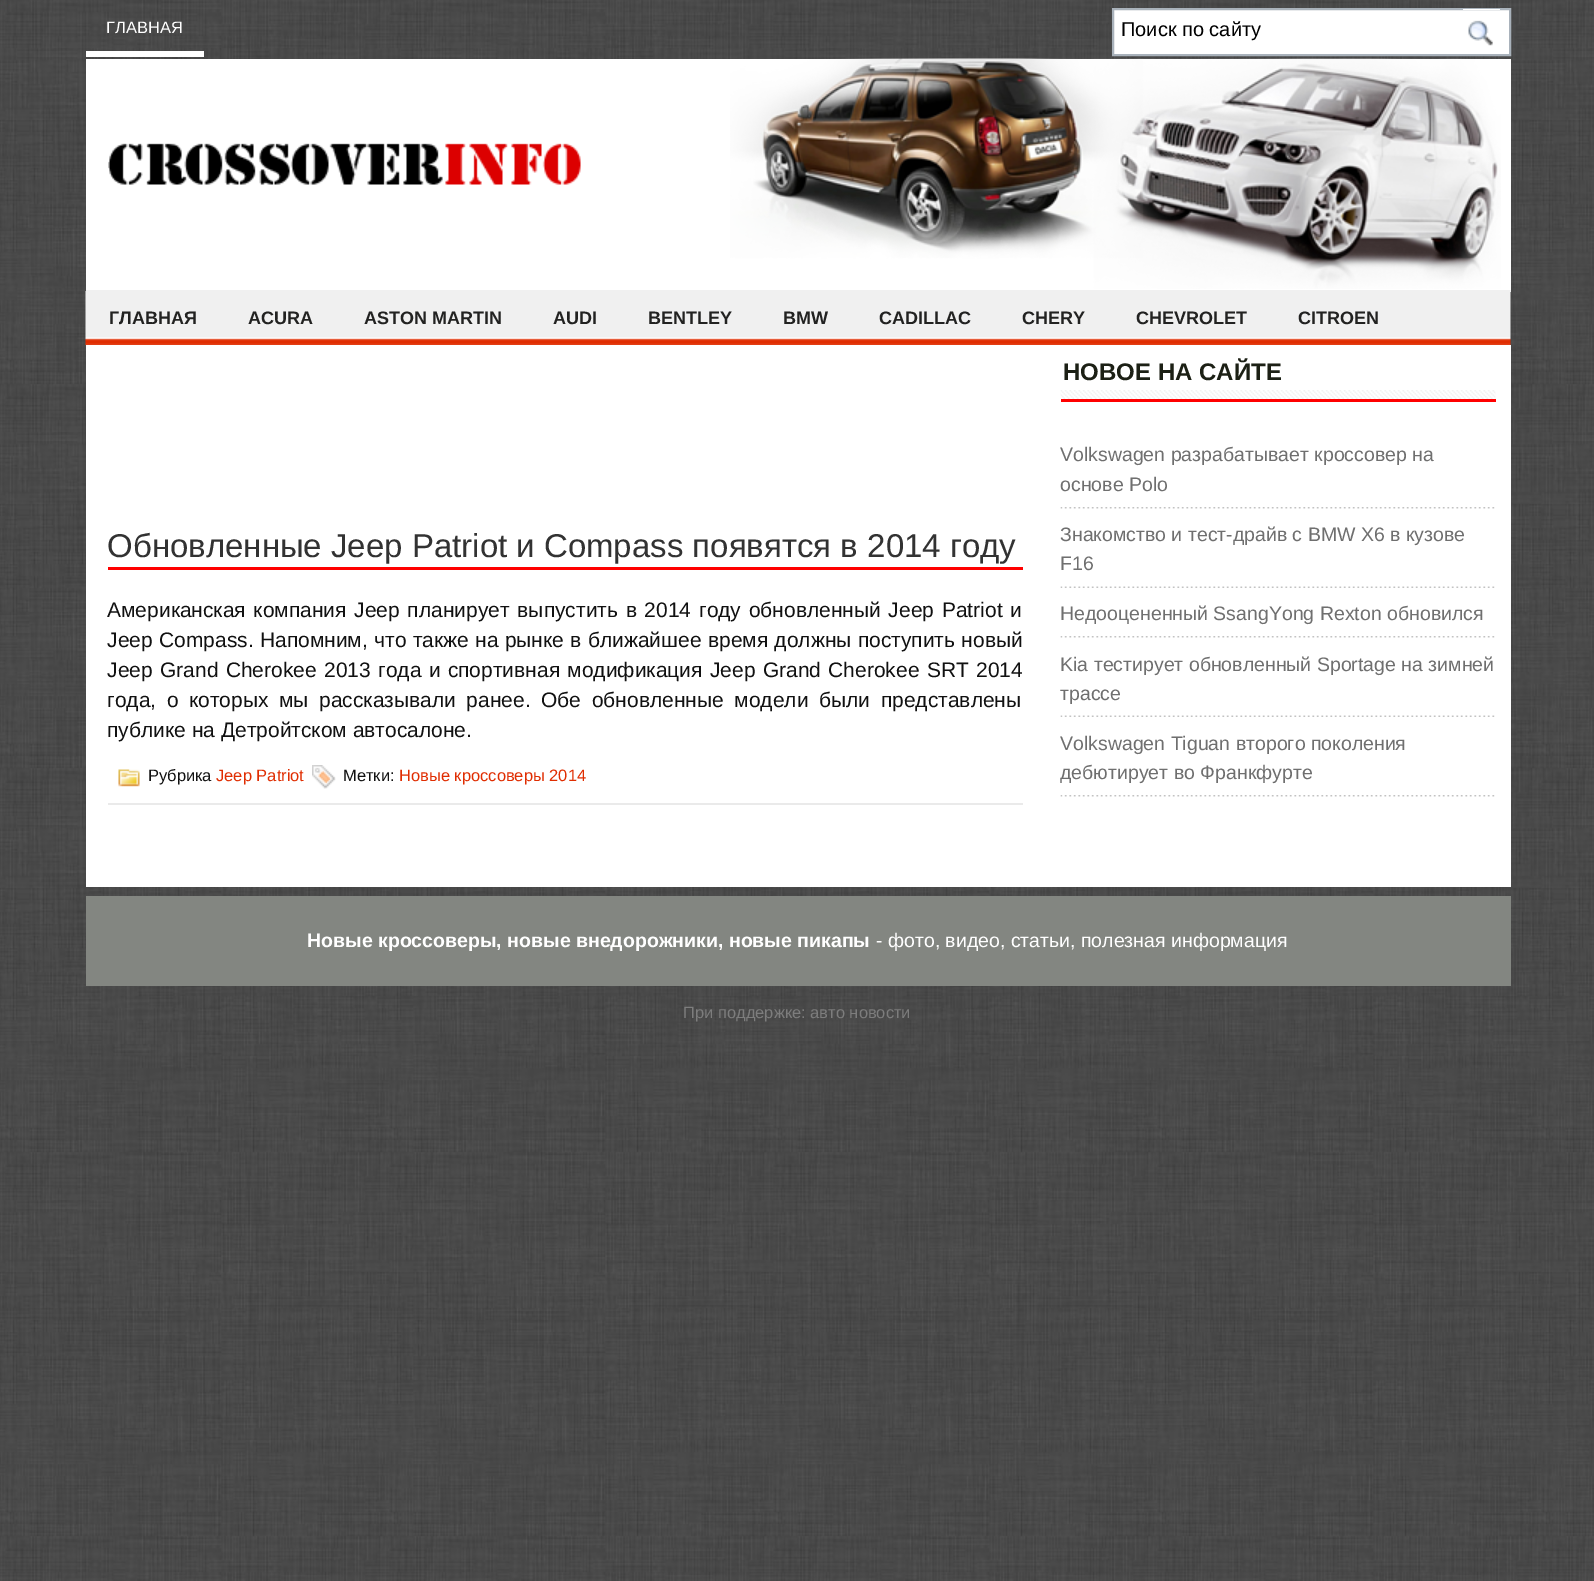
%!PS-Adobe-3.0
%%BoundingBox: 0 0 1594 1581
%%LanguageLevel: 3
%%Pages: 1
%%EndComments
%%BeginProlog
/setink { 3 { 255 div 3 1 roll } repeat setrgbcolor } def
/usefont { [ exch dup neg 0 0 3 -1 roll 0 0 ] selectfont } def
/drawtext { setink usefont moveto show } def
/fillbox { setink rectfill } def
/drawimage { 5 dict begin { /h /w /y /x /name } { exch def } forall
  gsave x y translate w h scale
  w h 8 [w 0 0 h 0 0] name (r) file false 3 colorimage grestore end } def
%%EndProlog
%%BeginSetup
<< /PageSize [1594 1581] >> setpagedevice
%%EndSetup
%%Page: 1 1
0 1581 translate 1 -1 scale
4 setmiterlimit
0 0 1594 1581 255 255 255 fillbox
(assets/img1.rgb) 0 0 1594 1581 drawimage
86 51 118 6 255 255 255 fillbox
(ГЛАВНАЯ) 106 33 /LiberationSans-Regular 16.5 255 255 255 drawtext
1113 9 moveto 1510 9 lineto 1510 55 lineto 1113 55 lineto closepath gsave fill grestore
169 178 187 setink
2 setlinewidth
stroke
(Поиск по сайту) 1121 36 /LiberationSans-Regular 20 0 0 0 drawtext
1463 9 37 1 255 255 255 fillbox
(assets/img2.rgb) 1468 20 25 26 drawimage
86 59 1425 231 255 255 255 fillbox
(assets/img3.rgb) 730 58 771 231 drawimage
(assets/img4.rgb) 108 143 473 42 drawimage
(assets/img5.rgb) 85 291 1426 54 drawimage
86 290 1425 2 240 240 240 fillbox
(ГЛАВНАЯ) 109 324 /LiberationSans-Bold 18 34 34 33 drawtext
(ACURA) 248 324 /LiberationSans-Bold 18 34 34 33 drawtext
(ASTON MARTIN) 364 324 /LiberationSans-Bold 18 34 34 33 drawtext
(AUDI) 553 324 /LiberationSans-Bold 18 34 34 33 drawtext
(BENTLEY) 648 324 /LiberationSans-Bold 18 34 34 33 drawtext
(BMW) 783 324 /LiberationSans-Bold 18 34 34 33 drawtext
(CADILLAC) 879 324 /LiberationSans-Bold 18 34 34 33 drawtext
(CHERY) 1022 324 /LiberationSans-Bold 18 34 34 33 drawtext
(CHEVROLET) 1136 324 /LiberationSans-Bold 18 34 34 33 drawtext
(CITROEN) 1298 324 /LiberationSans-Bold 18 34 34 33 drawtext
86 345 1425 542 255 255 255 fillbox
108 803 915 2 234 234 234 fillbox
108 567 915 3 255 0 0 fillbox
(Обновленные Jeep Patriot и Compass появятся в 2014 году) 107 557 /LiberationSans-Regular 33 50 50 50 drawtext
/LiberationSans-Regular 21 usefont
17 17 17 setink
107 617 moveto 1.9 0 32 (Американская компания Jeep планирует выпустить в 2014 году обновленный Jeep Patriot и) widthshow
107 647 moveto 0.5 0 32 (Jeep Compass. Напомним, что также на рынке в ближайшее время должны поступить новый) widthshow
107 677 moveto 1.5 0 32 (Jeep Grand Cherokee 2013 года и спортивная модификация Jeep Grand Cherokee SRT 2014) widthshow
107 707 moveto 4.75 0 32 (года, о которых мы рассказывали ранее. Обе обновленные модели были представлены) widthshow
(публике на Детройтском автосалоне.) 107 737 /LiberationSans-Regular 21 17 17 17 drawtext
(assets/img6.rgb) 118 769 22 18 drawimage
(Рубрика) 148 781 /LiberationSans-Regular 16.5 17 17 17 drawtext
(Jeep Patriot) 216 781 /LiberationSans-Regular 16.5 224 45 1 drawtext
(assets/img7.rgb) 312 765 24 24 drawimage
(Метки:) 343 781 /LiberationSans-Regular 16.5 17 17 17 drawtext
(Новые кроссоверы 2014) 399 781 /LiberationSans-Regular 16.5 224 45 1 drawtext
(assets/img8.rgb) 1060 390 436 9 drawimage
1061 399 435 3 255 0 0 fillbox
(НОВОЕ НА САЙТЕ) 1063 380 /LiberationSans-Bold 24 28 32 21 drawtext
(assets/img9.rgb) 1060 507 435 2 drawimage
(Volkswagen разрабатывает кроссовер на) 1060 461 /LiberationSans-Regular 19.5 111 111 111 drawtext
(основе Polo) 1060 491 /LiberationSans-Regular 19.5 111 111 111 drawtext
(assets/img10.rgb) 1060 586 435 2 drawimage
(Знакомство и тест-драйв с BMW X6 в кузове) 1060 541 /LiberationSans-Regular 19.5 111 111 111 drawtext
(F16) 1060 570 /LiberationSans-Regular 19.5 111 111 111 drawtext
(assets/img9.rgb) 1060 636 435 2 drawimage
(Недооцененный SsangYong Rexton обновился) 1060 620 /LiberationSans-Regular 19.5 111 111 111 drawtext
(assets/img10.rgb) 1060 715 435 2 drawimage
(Kia тестирует обновленный Sportage на зимней) 1060 671 /LiberationSans-Regular 19.5 111 111 111 drawtext
(трассе) 1060 700 /LiberationSans-Regular 19.5 111 111 111 drawtext
(assets/img9.rgb) 1060 795 435 2 drawimage
(Volkswagen Tiguan второго поколения) 1060 750 /LiberationSans-Regular 19.5 111 111 111 drawtext
(дебютирует во Франкфурте) 1060 779 /LiberationSans-Regular 19.5 111 111 111 drawtext
86 896 1425 90 131 134 129 fillbox
(Новые кроссоверы, новые внедорожники, новые пикапы) 307 947 /LiberationSans-Bold 19.5 255 255 255 drawtext
(- фото, видео, статьи, полезная информация) 876 947 /LiberationSans-Regular 19.5 255 255 255 drawtext
(При поддержке: авто новости) 683 1018 /LiberationSans-Regular 16.5 125 125 125 drawtext
showpage
%%EOF
